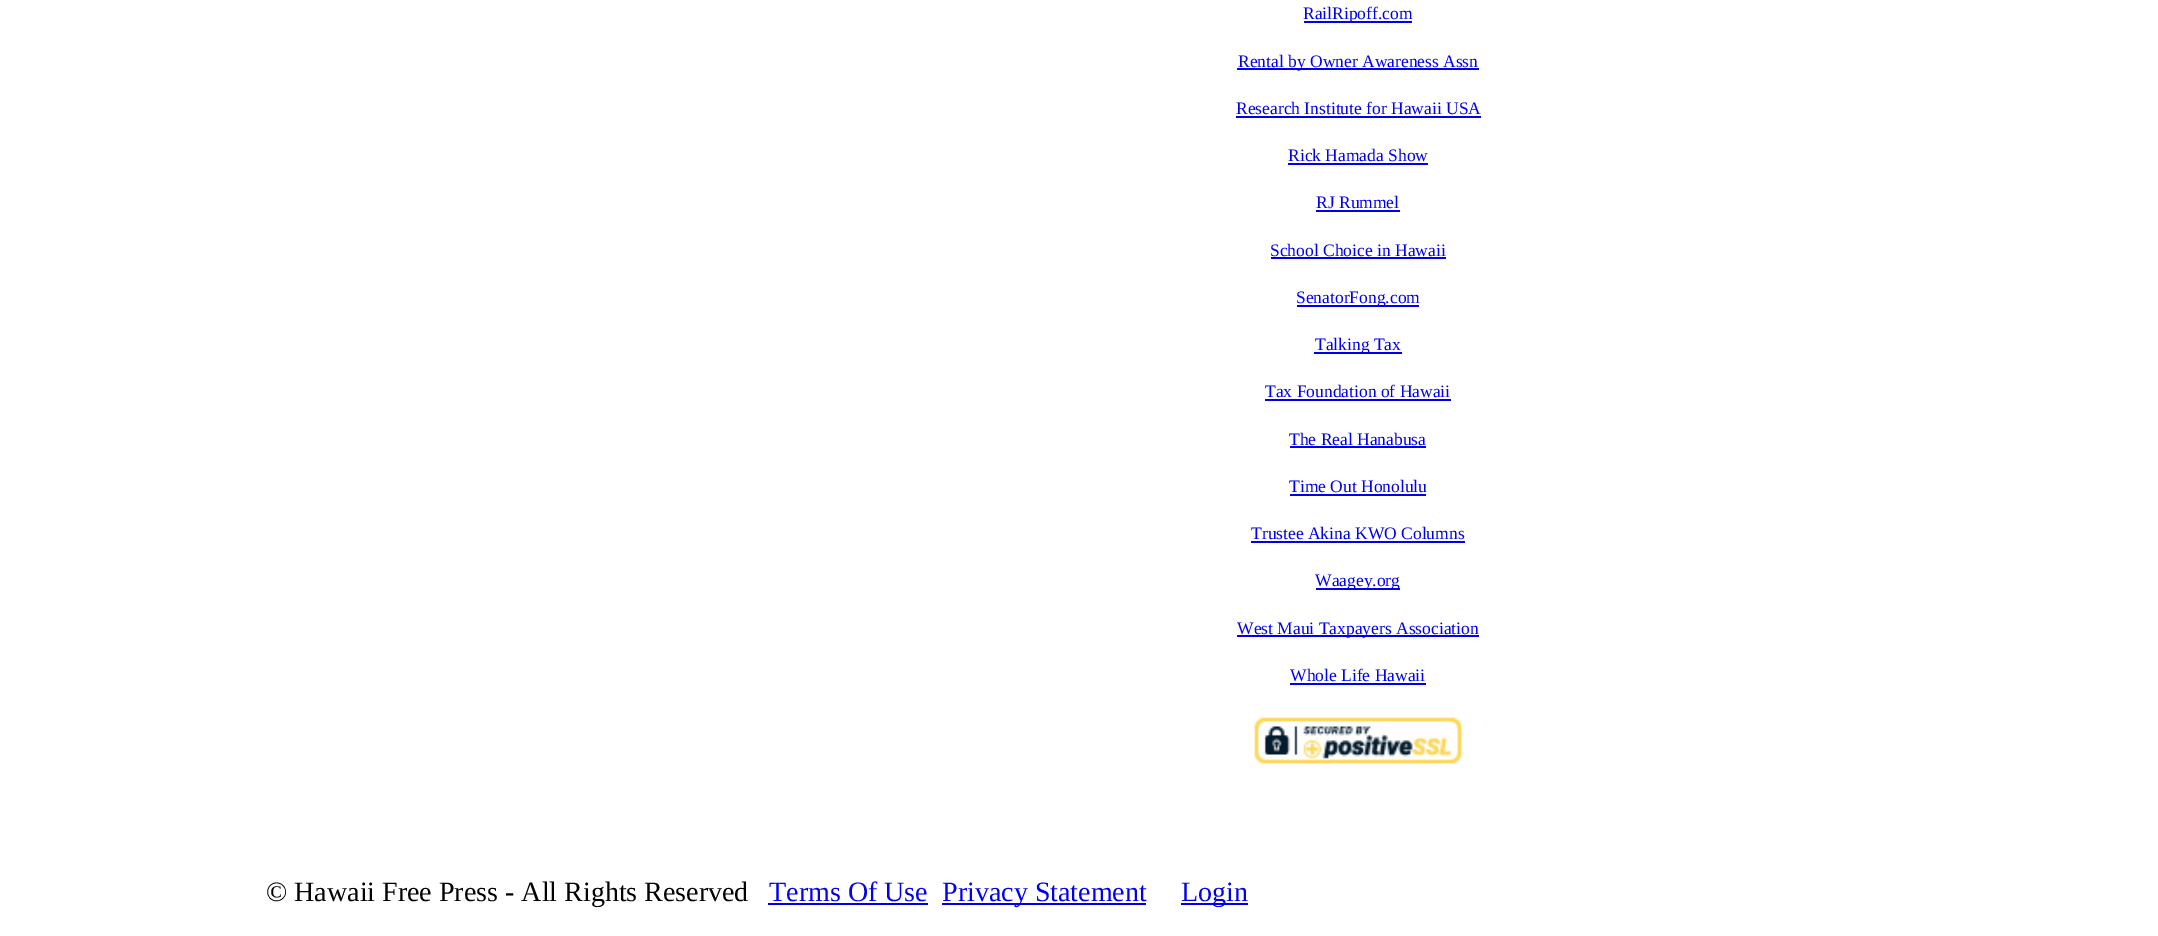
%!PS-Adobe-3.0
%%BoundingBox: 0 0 2158 936
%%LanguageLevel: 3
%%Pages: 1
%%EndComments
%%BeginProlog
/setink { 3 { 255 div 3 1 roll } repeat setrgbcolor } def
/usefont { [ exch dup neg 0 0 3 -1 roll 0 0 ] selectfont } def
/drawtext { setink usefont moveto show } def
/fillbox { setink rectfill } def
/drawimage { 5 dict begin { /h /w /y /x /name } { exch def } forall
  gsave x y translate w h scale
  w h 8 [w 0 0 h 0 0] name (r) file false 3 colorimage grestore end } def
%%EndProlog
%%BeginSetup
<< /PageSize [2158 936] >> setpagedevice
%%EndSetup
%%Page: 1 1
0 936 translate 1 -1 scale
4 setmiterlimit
0 0 2158 936 255 255 255 fillbox
1304 21 108 2 0 0 238 fillbox
(RailRipoff.com) 1303 19 /LiberationSerif-Regular 17.5 0 0 238 drawtext
1237 68 242 2 0 0 238 fillbox
(Rental by Owner Awareness Assn) 1238 67 /LiberationSerif-Regular 17.5 0 0 238 drawtext
(Research Institute for Hawaii USA) 1236 114 /LiberationSerif-Regular 17.5 0 0 238 drawtext
1236 116 245 2 0 0 238 fillbox
(Rick Hamada Show) 1288 161 /LiberationSerif-Regular 17.5 0 0 238 drawtext
1288 163 140 2 0 0 238 fillbox
(RJ Rummel) 1316 208 /LiberationSerif-Regular 17.5 0 0 238 drawtext
1316 210 84 2 0 0 238 fillbox
(School Choice in Hawaii) 1270 256 /LiberationSerif-Regular 17.5 0 0 238 drawtext
1271 257 175 2 0 0 238 fillbox
1297 305 122 2 0 0 238 fillbox
(SenatorFong.com) 1296 303 /LiberationSerif-Regular 17.5 0 0 238 drawtext
1314 352 88 2 0 0 238 fillbox
(Talking Tax) 1315 350 /LiberationSerif-Regular 17.5 0 0 238 drawtext
(Tax Foundation of Hawaii) 1265 397 /LiberationSerif-Regular 17.5 0 0 238 drawtext
1265 399 186 2 0 0 238 fillbox
(The Real Hanabusa) 1289 445 /LiberationSerif-Regular 17.5 0 0 238 drawtext
1290 446 136 2 0 0 238 fillbox
(Time Out Honolulu) 1289 492 /LiberationSerif-Regular 17.5 0 0 238 drawtext
1290 494 136 2 0 0 238 fillbox
(Trustee Akina KWO Columns) 1251 539 /LiberationSerif-Regular 17.5 0 0 238 drawtext
1251 541 214 2 0 0 238 fillbox
1316 588 84 2 0 0 238 fillbox
(Waagey.org) 1315 586 /LiberationSerif-Regular 17.5 0 0 238 drawtext
1237 635 242 2 0 0 238 fillbox
(West Maui Taxpayers Association) 1237 634 /LiberationSerif-Regular 17.5 0 0 238 drawtext
(Whole Life Hawaii) 1290 681 /LiberationSerif-Regular 17.5 0 0 238 drawtext
1290 683 136 2 0 0 238 fillbox
(assets/img1.rgb) 1253 717 209 47 drawimage
(© Hawaii Free Press - All Rights Reserved) 266 901 /LiberationSerif-Regular 28 0 0 0 drawtext
(Terms Of Use) 769 901 /LiberationSerif-Regular 28 0 0 238 drawtext
768 903 160 2 0 0 238 fillbox
942 903 204 2 0 0 238 fillbox
(Privacy Statement) 942 901 /LiberationSerif-Regular 28 0 0 238 drawtext
1181 903 67 2 0 0 238 fillbox
(Login) 1181 901 /LiberationSerif-Regular 28 0 0 238 drawtext
showpage
%%EOF
